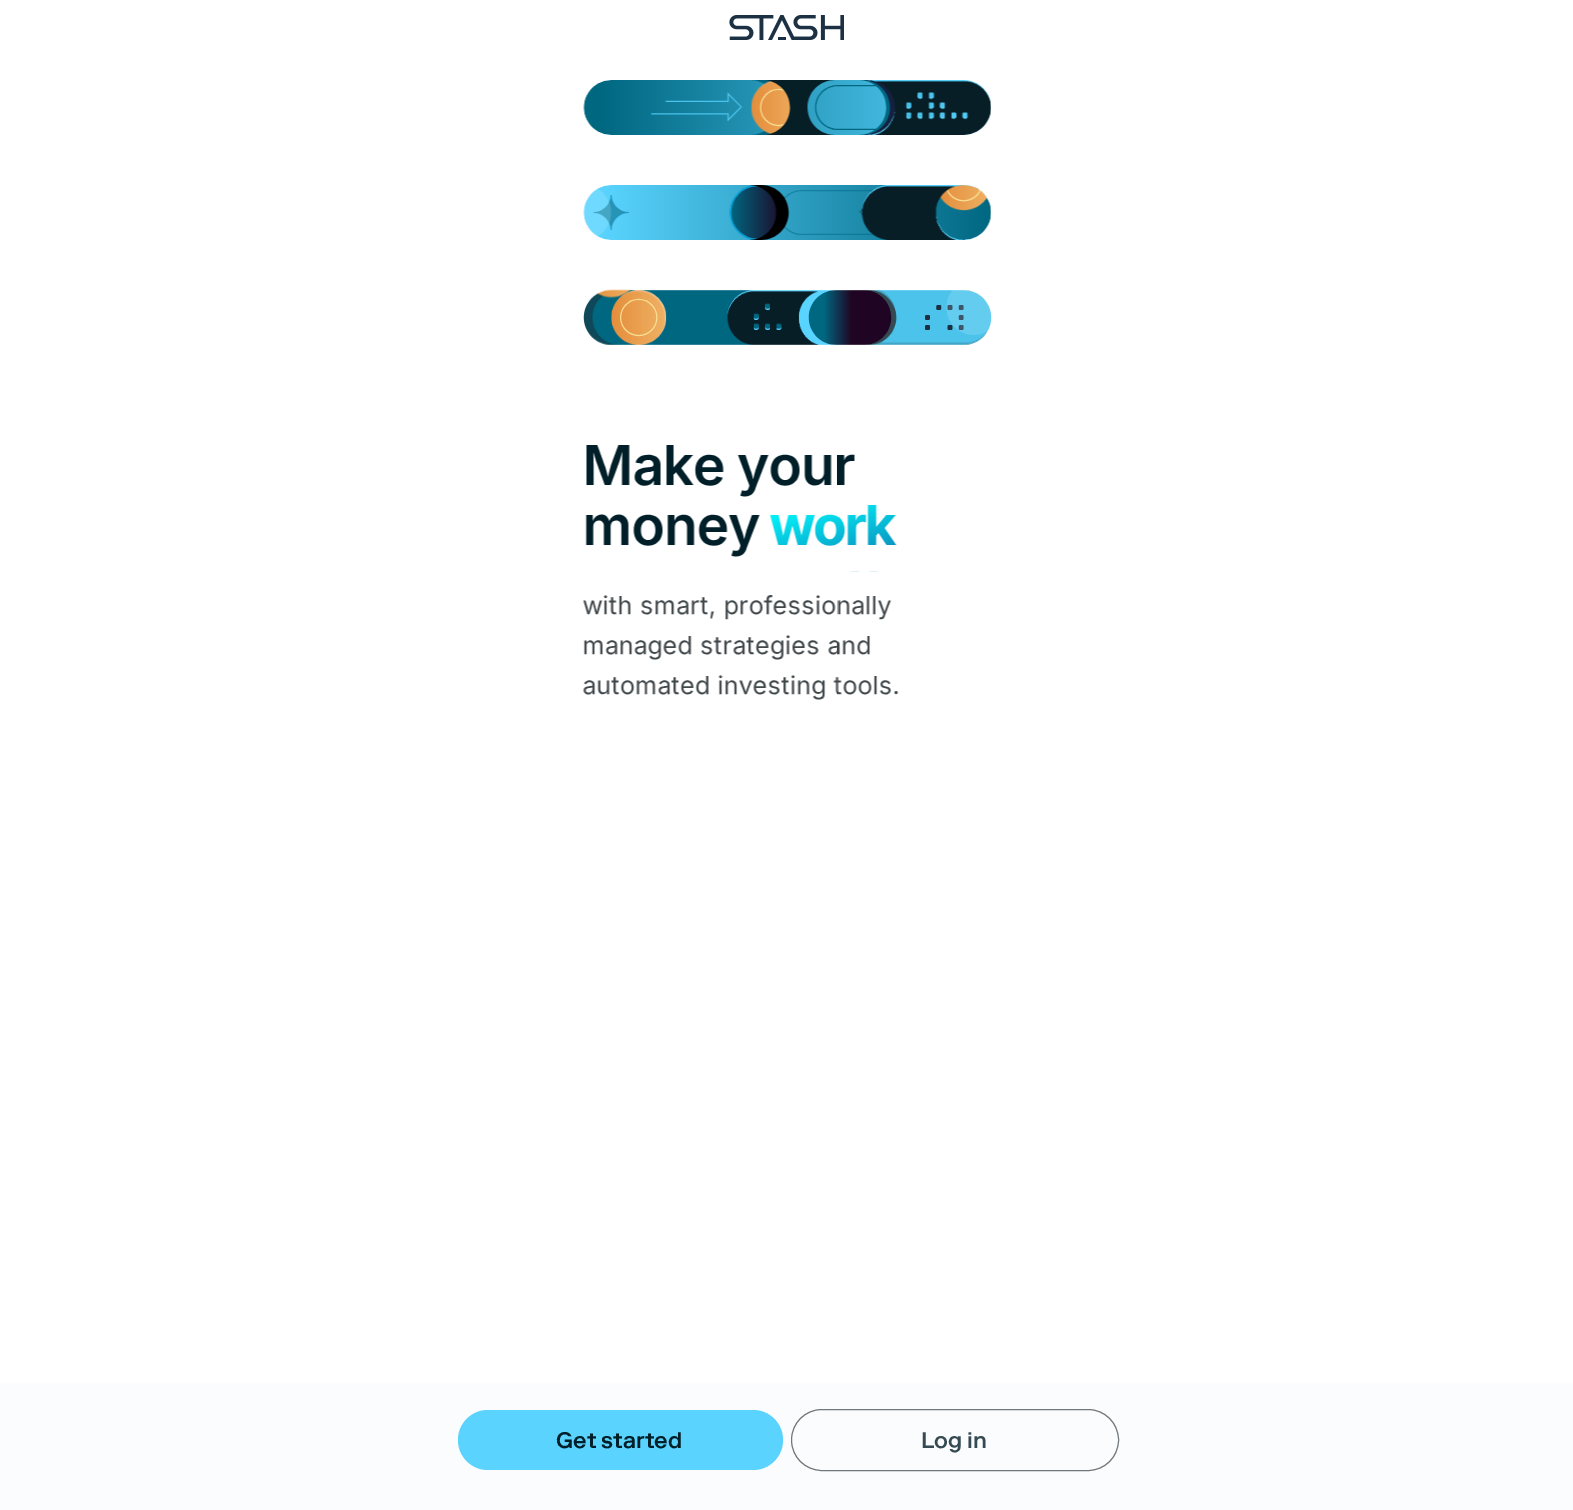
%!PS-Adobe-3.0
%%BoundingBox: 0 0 1573 1510
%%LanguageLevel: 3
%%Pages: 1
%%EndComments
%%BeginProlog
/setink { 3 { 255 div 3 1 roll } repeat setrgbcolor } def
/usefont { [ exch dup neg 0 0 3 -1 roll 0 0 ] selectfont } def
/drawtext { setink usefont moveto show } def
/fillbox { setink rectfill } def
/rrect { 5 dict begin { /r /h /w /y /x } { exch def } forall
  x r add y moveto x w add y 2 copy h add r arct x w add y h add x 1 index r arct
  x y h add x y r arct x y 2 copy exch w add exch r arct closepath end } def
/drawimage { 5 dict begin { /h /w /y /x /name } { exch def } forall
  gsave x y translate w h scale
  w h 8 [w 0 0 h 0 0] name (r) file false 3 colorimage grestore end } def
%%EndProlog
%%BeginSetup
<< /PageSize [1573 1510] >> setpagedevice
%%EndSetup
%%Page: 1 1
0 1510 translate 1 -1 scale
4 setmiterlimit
0 0 1573 1510 255 255 255 fillbox
(assets/img1.rgb) 729 15 115 25 drawimage
(assets/img2.rgb) 582 80 410 620 drawimage
gsave 0 1383 moveto 1573 1383 lineto 1573 1390 lineto 0 1390 lineto closepath clip newpath
<< /ShadingType 2 /ColorSpace /DeviceRGB /Coords [787 1390 787 1370] /Extend [true true] /Function << /FunctionType 2 /Domain [0 1] /C0 [0.984 0.988 0.996] /C1 [1 1 1] /N 1 >> >> shfill grestore
0 1390 1573 120 251 252 254 fillbox
90 212 255 setink
458 1410 325 60 30 rrect fill
(Get started) 556 1448 /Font-Medium 22.5 0 31 41 drawtext
112 120 125 setink
791.5 1409.5 327 61 30.5 rrect stroke
(Log in) 921 1448 /Font-Medium 22.5 53 74 83 drawtext
showpage
%%EOF
